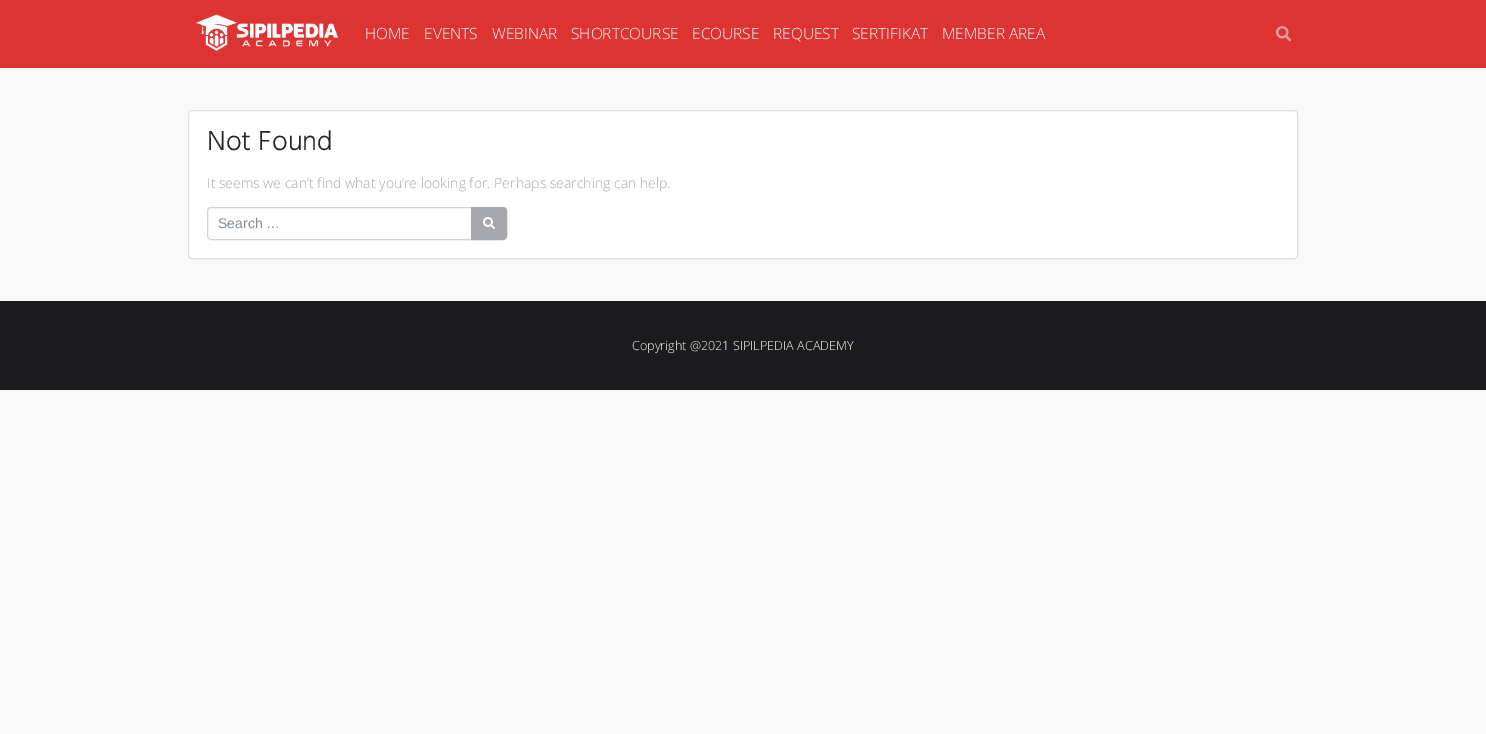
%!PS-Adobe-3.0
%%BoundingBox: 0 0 1486 734
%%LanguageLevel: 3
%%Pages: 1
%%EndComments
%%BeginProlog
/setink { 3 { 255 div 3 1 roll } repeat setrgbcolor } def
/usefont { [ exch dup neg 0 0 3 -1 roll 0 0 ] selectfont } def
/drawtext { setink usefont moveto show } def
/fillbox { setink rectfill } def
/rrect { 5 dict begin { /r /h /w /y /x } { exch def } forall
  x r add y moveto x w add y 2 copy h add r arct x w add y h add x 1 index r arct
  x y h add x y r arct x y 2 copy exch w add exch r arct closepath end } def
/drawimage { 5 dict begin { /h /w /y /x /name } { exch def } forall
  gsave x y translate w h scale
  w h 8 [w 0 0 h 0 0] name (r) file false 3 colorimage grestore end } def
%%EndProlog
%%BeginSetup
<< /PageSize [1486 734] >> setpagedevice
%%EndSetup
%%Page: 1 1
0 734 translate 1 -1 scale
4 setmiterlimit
0 0 1486 734 248 248 248 fillbox
0 0 1486 68 221 51 51 fillbox
(assets/img1.rgb) 196 14 143 37 drawimage
(HOME) 365 39 /OpenSans-Light 15.5 252 252 252 drawtext
(EVENTS) 424 39 /OpenSans-Light 15.5 252 252 252 drawtext
(WEBINAR) 492 39 /OpenSans-Light 15.5 252 252 252 drawtext
(SHORTCOURSE) 571 39 /OpenSans-Light 15.5 252 252 252 drawtext
(ECOURSE) 692 39 /OpenSans-Light 15.5 252 252 252 drawtext
(REQUEST) 773 39 /OpenSans-Light 15.5 252 252 252 drawtext
(SERTIFIKAT) 852 39 /OpenSans-Light 15.5 252 252 252 drawtext
(MEMBER AREA) 942 39 /OpenSans-Light 15.5 252 252 252 drawtext
(assets/img2.rgb) 1276 26 15 16 drawimage
255 255 255 setink
188.5 110.5 1109 148 3.5 rrect gsave fill grestore
223 223 223 setink
stroke
(Not Found) 207 150 /HindGuntur-Light 28 33 37 41 drawtext
(It seems we can’t find what you’re looking for. Perhaps searching can help.) 207 188 /OpenSans-Light 14 167 168 173 drawtext
206 212 218 setink
211 207.5 moveto 471.5 207.5 lineto 471.5 239.5 lineto 211 239.5 lineto 209 239.5 207.5 238 207.5 236 curveto 207.5 211 lineto 207.5 209 209 207.5 211 207.5 curveto closepath stroke
(Search …) 218 228 /LiberationSans-Regular 14 134 142 150 drawtext
167 168 173 setink
471.5 207.5 moveto 503 207.5 lineto 505 207.5 506.5 209 506.5 211 curveto 506.5 236 lineto 506.5 238 505 239.5 503 239.5 curveto 471.5 239.5 lineto closepath gsave fill grestore
stroke
(assets/img3.rgb) 483 217 12 12 drawimage
0 302 1486 88 27 27 29 fillbox
0 301 1486 1 24 24 25 fillbox
(Copyright @2021 SIPILPEDIA ACADEMY) 632 350 /OpenSans-Light 12.6 252 252 252 drawtext
showpage
%%EOF
